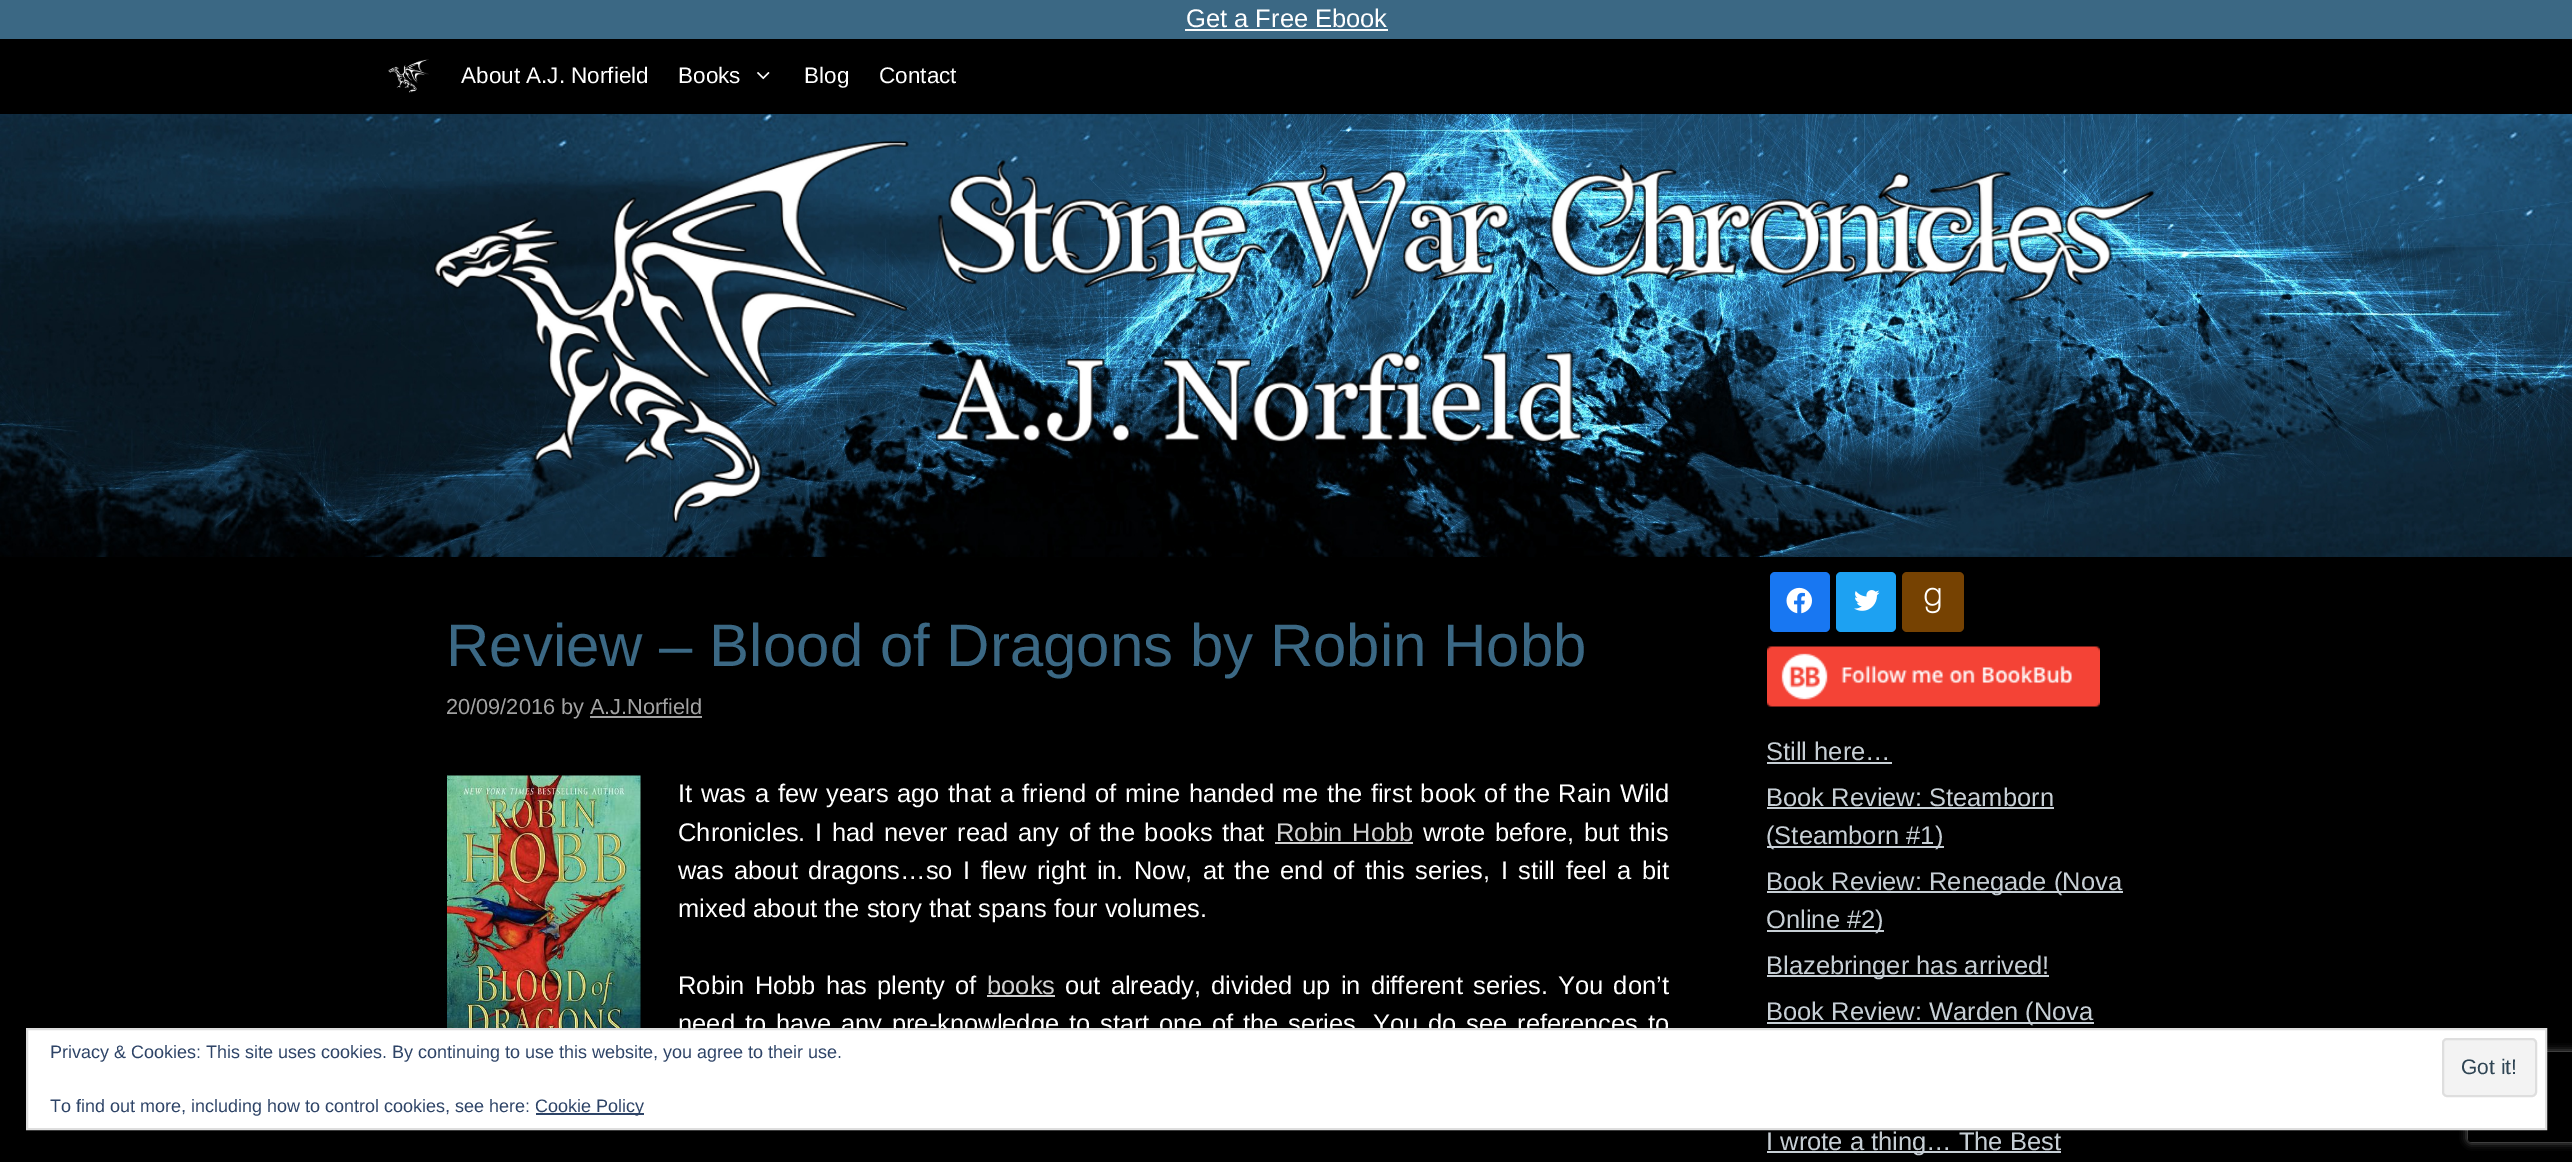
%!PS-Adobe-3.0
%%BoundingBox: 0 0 2572 1162
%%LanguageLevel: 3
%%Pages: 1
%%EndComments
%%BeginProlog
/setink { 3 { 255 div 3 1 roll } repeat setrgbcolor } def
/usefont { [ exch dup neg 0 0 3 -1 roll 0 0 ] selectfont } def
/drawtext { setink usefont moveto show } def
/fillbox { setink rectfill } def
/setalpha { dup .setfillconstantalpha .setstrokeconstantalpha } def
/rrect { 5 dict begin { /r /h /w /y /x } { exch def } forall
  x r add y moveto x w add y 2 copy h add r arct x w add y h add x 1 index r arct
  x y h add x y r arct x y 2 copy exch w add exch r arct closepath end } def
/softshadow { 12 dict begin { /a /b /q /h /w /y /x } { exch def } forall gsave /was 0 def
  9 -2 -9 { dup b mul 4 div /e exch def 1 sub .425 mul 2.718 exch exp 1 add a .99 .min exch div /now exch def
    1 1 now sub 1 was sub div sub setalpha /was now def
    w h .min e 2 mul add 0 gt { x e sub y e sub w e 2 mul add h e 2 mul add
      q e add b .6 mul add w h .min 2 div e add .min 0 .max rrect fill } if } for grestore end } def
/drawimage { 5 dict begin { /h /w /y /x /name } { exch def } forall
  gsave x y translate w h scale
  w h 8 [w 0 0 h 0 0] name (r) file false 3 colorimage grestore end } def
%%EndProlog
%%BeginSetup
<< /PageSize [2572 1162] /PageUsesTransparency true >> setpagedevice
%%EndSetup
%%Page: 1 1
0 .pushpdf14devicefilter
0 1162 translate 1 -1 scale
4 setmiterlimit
0 0 2572 1162 0 0 0 fillbox
0 0 2572 39 59 104 132 fillbox
(Get a Free Ebook) 1186 27 /LiberationSans-Regular 25.5 255 255 255 drawtext
1185 29 203 2 252 252 252 fillbox
(assets/img1.rgb) 388 59 41 34 drawimage
(About A.J. Norfield) 461 83 /LiberationSans-Regular 22.5 255 255 255 drawtext
(Books) 678 83 /LiberationSans-Regular 22.5 255 255 255 drawtext
(assets/img2.rgb) 757 72 13 8 drawimage
(Blog) 804 83 /LiberationSans-Regular 22.5 255 255 255 drawtext
(Contact) 879 83 /LiberationSans-Regular 22.5 255 255 255 drawtext
(assets/img3.rgb) 0 114 2572 443 drawimage
(assets/img4.rgb) 434 141 1721 382 drawimage
(Review – Blood of Dragons by Robin Hobb) 446 666 /LiberationSans-Regular 60 59 104 132 drawtext
(20/09/2016 by A.J.Norfield) 446 714 /LiberationSans-Regular 21.75 163 163 163 drawtext
590 716 112 2 163 163 163 fillbox
(assets/img5.rgb) 447 775 194 253 drawimage
/LiberationSans-Regular 25.5 usefont
255 255 255 setink
678 802 moveto 1.6 0 32 (It was a few years ago that a friend of mine handed me the first book of the Rain Wild) widthshow
678 841 moveto 2.5 0 32 (Chronicles. I had never read any of the books that) widthshow
208 208 208 setink
1276 841 moveto 2.5 0 32 (Robin Hobb) widthshow
1275 842 138 2 208 208 208 fillbox
255 255 255 setink
1423 841 moveto 2.5 0 32 (wrote before, but this) widthshow
678 879 moveto 3.4 0 32 (was about dragons…so I flew right in. Now, at the end of this series, I still feel a bit) widthshow
(mixed about the story that spans four volumes.) 678 917 /LiberationSans-Regular 25.5 255 255 255 drawtext
678 994 moveto 3 0 32 (Robin Hobb has plenty of) widthshow
(books) 987 994 /LiberationSans-Regular 25.5 208 208 208 drawtext
987 995 68 2 208 208 208 fillbox
255 255 255 setink
1065 994 moveto 3 0 32 (out already, divided up in different series. You don’t) widthshow
678 1032 moveto 2.75 0 32 (need to have any pre-knowledge to start one of the series. You do see references to) widthshow
24 119 242 setink
1770 572 60 60 5 rrect fill
(assets/img6.rgb) 1786 587 26 27 drawimage
29 161 242 setink
1836 572 60 60 5 rrect fill
(assets/img7.rgb) 1854 590 26 21 drawimage
118 66 2 setink
1902 572 62 60 5 rrect fill
(assets/img8.rgb) 1924 587 17 27 drawimage
(assets/img9.rgb) 1767 646 333 61 drawimage
(Still here…) 1766 760 /LiberationSans-Regular 25.5 199 207 213 drawtext
1767 762 125 2 199 207 213 fillbox
(Book Review: Steamborn) 1766 806 /LiberationSans-Regular 25.5 199 207 213 drawtext
1767 807 287 2 199 207 213 fillbox
1767 846 177 2 199 207 213 fillbox
(\(Steamborn #1\)) 1766 844 /LiberationSans-Regular 25.5 199 207 213 drawtext
1767 891 356 2 199 207 213 fillbox
(Book Review: Renegade \(Nova) 1766 890 /LiberationSans-Regular 25.5 199 207 213 drawtext
1767 930 117 2 199 207 213 fillbox
(Online #2\)) 1766 928 /LiberationSans-Regular 25.5 199 207 213 drawtext
1767 975 282 2 199 207 213 fillbox
(Blazebringer has arrived!) 1766 974 /LiberationSans-Regular 25.5 199 207 213 drawtext
1767 1022 327 2 199 207 213 fillbox
(Book Review: Warden \(Nova) 1766 1020 /LiberationSans-Regular 25.5 199 207 213 drawtext
1767 1151 294 2 199 207 213 fillbox
(I wrote a thing… The Best) 1766 1150 /LiberationSans-Regular 25.5 199 207 213 drawtext
128 128 128 setink
2468 1052 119 90 3 4 1 softshadow
0 0 0 setink
2468 1052 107 90 3 rrect fill
255 255 255 setink
27 1029 moveto 2546 1029 lineto 2546 1129 lineto 27 1129 lineto closepath gsave fill grestore
222 222 222 setink
2 setlinewidth
stroke
(Privacy & Cookies: This site uses cookies. By continuing to use this website, you agree to their use.) 50 1058 /LiberationSans-Regular 18 46 68 103 drawtext
243 243 243 setink
2443 1039 93 57 4 rrect gsave fill grestore
222 222 222 setink
stroke
(Got it!) 2461 1074 /LiberationSans-Regular 21 46 68 83 drawtext
(To find out more, including how to control cookies, see here:) 50 1112 /LiberationSans-Regular 18 46 68 103 drawtext
536 1113 108 2 46 68 103 fillbox
(Cookie Policy) 535 1112 /LiberationSans-Regular 18 46 68 103 drawtext
.poppdf14devicefilter showpage
%%EOF
